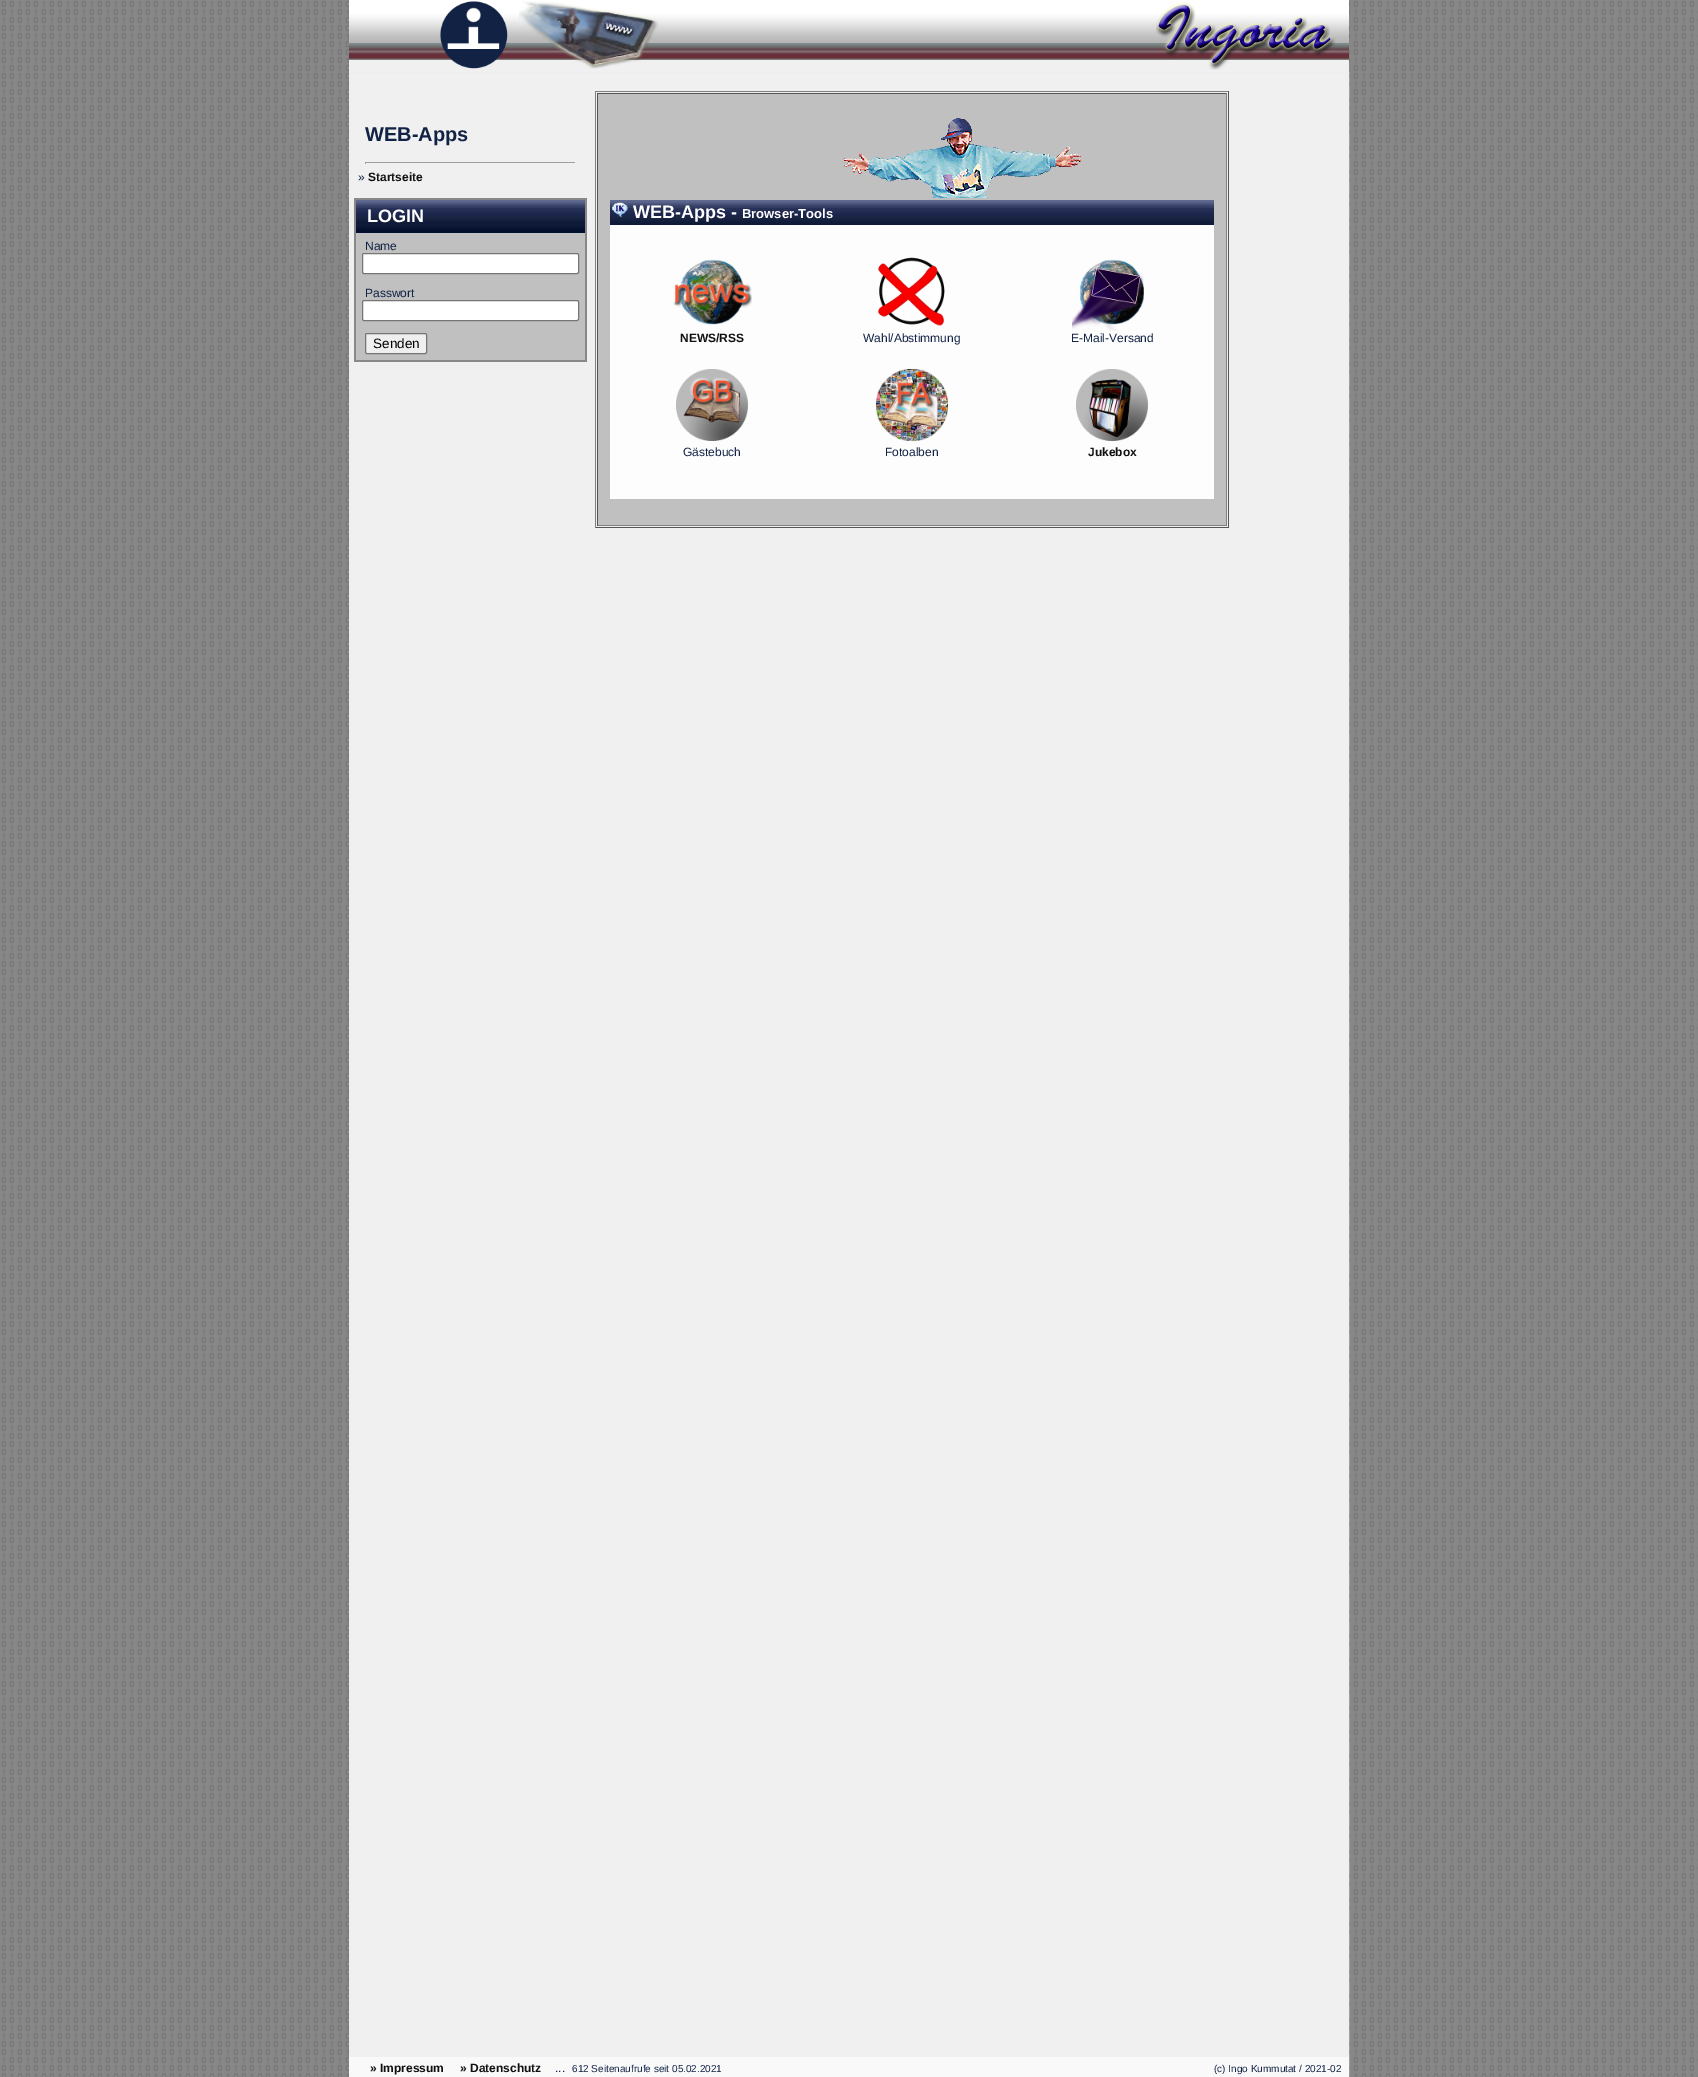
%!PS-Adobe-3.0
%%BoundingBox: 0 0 1698 2077
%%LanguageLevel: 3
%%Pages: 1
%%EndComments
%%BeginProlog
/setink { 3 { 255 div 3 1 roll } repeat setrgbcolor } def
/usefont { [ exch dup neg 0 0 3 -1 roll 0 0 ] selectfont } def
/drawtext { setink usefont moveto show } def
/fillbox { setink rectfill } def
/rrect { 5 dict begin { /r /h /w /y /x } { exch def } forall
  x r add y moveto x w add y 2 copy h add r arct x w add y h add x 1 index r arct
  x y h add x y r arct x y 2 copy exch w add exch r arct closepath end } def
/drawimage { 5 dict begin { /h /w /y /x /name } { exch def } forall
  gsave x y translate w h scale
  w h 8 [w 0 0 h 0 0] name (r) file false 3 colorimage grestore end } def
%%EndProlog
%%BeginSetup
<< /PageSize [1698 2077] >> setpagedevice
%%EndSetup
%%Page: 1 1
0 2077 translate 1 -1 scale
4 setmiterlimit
0 0 1698 2077 255 255 255 fillbox
(assets/img1.rgb) 0 0 1698 2077 drawimage
349 59 1000 13 240 240 240 fillbox
(assets/img2.rgb) 349 0 1000 60 drawimage
(assets/img3.rgb) 440 1 68 68 drawimage
(assets/img4.rgb) 519 1 140 68 drawimage
(assets/img5.rgb) 1156 2 180 68 drawimage
350 73 998 1984 240 240 240 fillbox
238 238 238 setink
349.5 72.5 999 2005 rectstroke
(WEB-Apps) 365 141 /LiberationSans-Bold 20 17 34 68 drawtext
365 162 211 1 159 159 159 fillbox
575 162 1 2 238 238 238 fillbox
365 162 1 2 159 159 159 fillbox
(») 358 181 /LiberationSans-Regular 12 17 34 68 drawtext
(Startseite) 368 181 /LiberationSans-Bold 12 17 17 17 drawtext
354 198 233 164 136 136 136 fillbox
356 233 229 127 192 192 192 fillbox
356 232 229 1 0 17 51 fillbox
(assets/img6.rgb) 356 200 229 32 drawimage
(LOGIN) 367 222 /LiberationSans-Bold 18 255 255 255 drawtext
(Name) 365 250 /LiberationSans-Regular 12 17 34 68 drawtext
255 255 255 setink
362.5 253.5 216 20 1.5 rrect gsave fill grestore
118 118 118 setink
stroke
(Passwort) 365 297 /LiberationSans-Regular 12 17 34 68 drawtext
255 255 255 setink
362.5 300.5 216 20 1.5 rrect gsave fill grestore
118 118 118 setink
stroke
239 239 239 setink
365.5 333.5 61 20 1.5 rrect gsave fill grestore
118 118 118 setink
stroke
(Senden) 373 348 /LiberationSans-Regular 13.5 0 0 0 drawtext
595 91 634 1 128 128 128 fillbox
1228 91 1 437 85 85 85 fillbox
595 527 634 1 85 85 85 fillbox
595 91 1 437 128 128 128 fillbox
598 94 628 431 192 192 192 fillbox
597 93 630 1 85 85 85 fillbox
1226 93 1 433 128 128 128 fillbox
597 525 630 1 128 128 128 fillbox
597 93 1 433 85 85 85 fillbox
(assets/img7.rgb) 842 118 239 80 drawimage
(assets/img8.rgb) 610 200 604 25 drawimage
(assets/img9.rgb) 612 202 16 16 drawimage
(WEB-Apps -) 633 218 /LiberationSans-Bold 18 255 255 255 drawtext
(Browser-Tools) 742 218 /LiberationSans-Bold 13 255 255 255 drawtext
610 225 604 274 253 253 253 fillbox
(assets/img10.rgb) 673 259 79 66 drawimage
(NEWS/RSS) 680 342 /LiberationSans-Bold 12 17 17 17 drawtext
(assets/img11.rgb) 877 257 68 69 drawimage
(Wahl/Abstimmung) 863 342 /LiberationSans-Regular 12 17 34 68 drawtext
(assets/img12.rgb) 1072 259 72 72 drawimage
(E-Mail-Versand) 1071 342 /LiberationSans-Regular 12 17 34 68 drawtext
(assets/img13.rgb) 676 369 72 72 drawimage
(Gästebuch) 683 456 /LiberationSans-Regular 12 17 34 68 drawtext
(assets/img14.rgb) 875 368 74 74 drawimage
(Fotoalben) 885 456 /LiberationSans-Regular 12 17 34 68 drawtext
(assets/img15.rgb) 1076 369 72 72 drawimage
(Jukebox) 1088 456 /LiberationSans-Bold 12 17 17 17 drawtext
349 2057 1000 20 249 249 250 fillbox
(» Impressum) 370 2072 /LiberationSans-Bold 12 17 17 17 drawtext
(» Datenschutz) 460 2072 /LiberationSans-Bold 12 17 17 17 drawtext
(...) 555 2072 /LiberationSans-Regular 12 17 34 68 drawtext
(612 Seitenaufrufe seit 05.02.2021) 572 2072 /LiberationSans-Regular 10 17 34 68 drawtext
(\(c\) Ingo Kummutat / 2021-02) 1214 2072 /LiberationSans-Regular 10 17 34 68 drawtext
showpage
%%EOF
